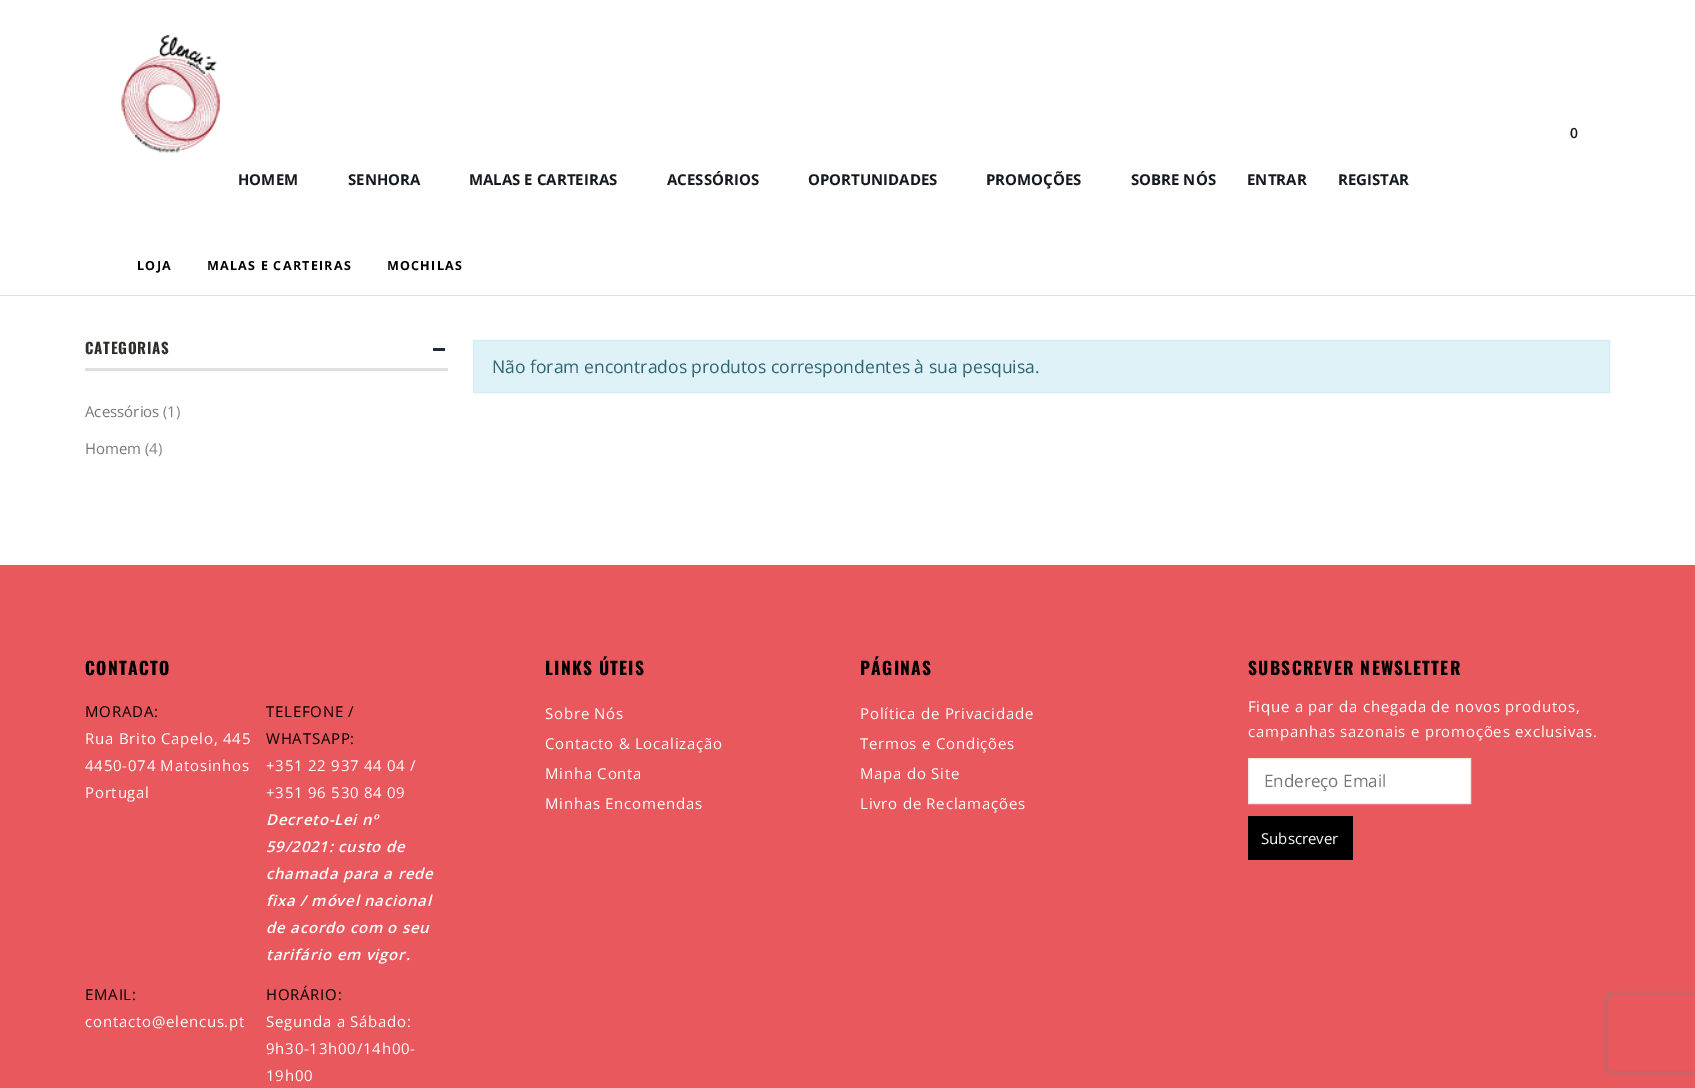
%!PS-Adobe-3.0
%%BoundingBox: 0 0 1695 1088
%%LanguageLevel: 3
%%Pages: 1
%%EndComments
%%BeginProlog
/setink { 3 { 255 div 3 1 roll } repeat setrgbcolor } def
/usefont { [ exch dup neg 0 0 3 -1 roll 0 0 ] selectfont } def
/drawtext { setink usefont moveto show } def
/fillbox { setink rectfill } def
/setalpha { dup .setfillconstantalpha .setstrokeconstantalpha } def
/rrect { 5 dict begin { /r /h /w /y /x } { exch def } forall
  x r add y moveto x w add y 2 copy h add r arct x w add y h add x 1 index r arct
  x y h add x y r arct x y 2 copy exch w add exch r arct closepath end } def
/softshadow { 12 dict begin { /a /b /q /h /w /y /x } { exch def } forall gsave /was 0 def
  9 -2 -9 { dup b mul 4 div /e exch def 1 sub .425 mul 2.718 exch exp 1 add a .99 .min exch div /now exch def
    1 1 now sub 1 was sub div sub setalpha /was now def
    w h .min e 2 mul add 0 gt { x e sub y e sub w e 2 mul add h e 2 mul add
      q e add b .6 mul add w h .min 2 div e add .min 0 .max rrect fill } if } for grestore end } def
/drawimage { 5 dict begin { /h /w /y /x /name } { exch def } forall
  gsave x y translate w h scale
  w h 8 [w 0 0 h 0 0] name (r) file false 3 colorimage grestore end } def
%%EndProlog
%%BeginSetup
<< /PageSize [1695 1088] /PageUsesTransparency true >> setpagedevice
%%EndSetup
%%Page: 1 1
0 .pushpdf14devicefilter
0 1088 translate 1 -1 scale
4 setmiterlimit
0 0 1695 1088 255 255 255 fillbox
(0) 1570 138 /OpenSans-SemiBold 14 20 26 31 drawtext
(assets/img1.rgb) 121 34 100 119 drawimage
(HOMEM) 238 185 /OpenSans-Bold 15 20 26 31 drawtext
(SENHORA) 348 185 /OpenSans-Bold 15 20 26 31 drawtext
(MALAS E CARTEIRAS) 469 185 /OpenSans-Bold 15 20 26 31 drawtext
(ACESSÓRIOS) 667 185 /OpenSans-Bold 15 20 26 31 drawtext
(OPORTUNIDADES) 808 185 /OpenSans-Bold 15 20 26 31 drawtext
(PROMOÇÕES) 986 185 /OpenSans-Bold 15 20 26 31 drawtext
(SOBRE NÓS) 1131 185 /OpenSans-Bold 15 20 26 31 drawtext
(ENTRAR) 1247 185 /OpenSans-Bold 15 20 26 31 drawtext
(REGISTAR) 1338 185 /OpenSans-Bold 15 20 26 31 drawtext
0 295 1695 1 223 223 223 fillbox
/OpenSans-Bold 12.5 usefont
0 0 0 setink
137 270 moveto 1.25 0 (LOJA) ashow
207 270 moveto 1.25 0 (MALAS E CARTEIRAS) ashow
387 270 moveto 1.25 0 (MOCHILAS) ashow
85 368 363 3 223 223 223 fillbox
/Oswald-Bold 15 usefont
48 46 42 setink
85 354 moveto 0.75 0 (CATEGORIAS) ashow
433 348 12 3 33 41 60 fillbox
(Acessórios) 85 417 /OpenSans-Regular 15 119 119 119 drawtext
(\(1\)) 163 417 /OpenSans-Regular 15 132 132 132 drawtext
(Homem) 85 454 /OpenSans-Regular 15 119 119 119 drawtext
(\(4\)) 145 454 /OpenSans-Regular 15 132 132 132 drawtext
222 242 248 setink
473.5 340.5 moveto 1609.5 340.5 lineto 1609.5 392.5 lineto 473.5 392.5 lineto closepath gsave fill grestore
209 237 246 setink
stroke
(Não foram encontrados produtos correspondentes à sua pesquisa.) 492 373 /OpenSans-Regular 17.5 47 100 115 drawtext
0 565 1695 523 232 88 93 fillbox
/Oswald-Bold 17.5 usefont
0 0 0 setink
85 675 moveto 1.25 0 (CONTACTO) ashow
/OpenSans-Regular 15 usefont
85 717 moveto 0.75 0 (MORADA:) ashow
255 255 255 setink
85 744 moveto 0.75 0 (Rua Brito Capelo, 445) ashow
85 771 moveto 0.75 0 (4450-074 Matosinhos) ashow
85 798 moveto 0.75 0 (Portugal) ashow
0 0 0 setink
266 717 moveto 0.75 0 (TELEFONE /) ashow
266 744 moveto 0.75 0 (WHATSAPP:) ashow
255 255 255 setink
266 771 moveto 0.75 0 (+351 22 937 44 04 /) ashow
266 798 moveto 0.75 0 (+351 96 530 84 09) ashow
/OpenSans-SemiBoldItalic 15 usefont
266 825 moveto 0.75 0 (Decreto-Lei nº) ashow
266 852 moveto 0.75 0 (59/2021: custo de) ashow
266 879 moveto 0.75 0 (chamada para a rede) ashow
266 906 moveto 0.75 0 (fixa / móvel nacional) ashow
266 933 moveto 0.75 0 (de acordo com o seu) ashow
266 960 moveto 0.75 0 (tarifário em vigor.) ashow
/OpenSans-Regular 15 usefont
0 0 0 setink
85 1000 moveto 0.75 0 (EMAIL:) ashow
255 255 255 setink
85 1027 moveto 0.75 0 (contacto@elencus.pt) ashow
0 0 0 setink
266 1000 moveto 0.75 0 (HORÁRIO:) ashow
255 255 255 setink
266 1027 moveto 0.75 0 (Segunda a Sábado:) ashow
266 1054 moveto 0.75 0 (9h30-13h00/14h00-) ashow
266 1081 moveto 0.75 0 (19h00) ashow
/Oswald-Bold 17.5 usefont
0 0 0 setink
545 675 moveto 1.25 0 (LINKS ÚTEIS) ashow
/OpenSans-Regular 15 usefont
255 255 255 setink
545 719 moveto 0.75 0 (Sobre Nós) ashow
545 749 moveto 0.75 0 (Contacto & Localização) ashow
545 779 moveto 0.75 0 (Minha Conta) ashow
545 809 moveto 0.75 0 (Minhas Encomendas) ashow
/Oswald-Bold 17.5 usefont
0 0 0 setink
860 675 moveto 1.25 0 (PÁGINAS) ashow
/OpenSans-Regular 15 usefont
255 255 255 setink
860 719 moveto 0.75 0 (Política de Privacidade) ashow
860 749 moveto 0.75 0 (Termos e Condições) ashow
860 779 moveto 0.75 0 (Mapa do Site) ashow
860 809 moveto 0.75 0 (Livro de Reclamações) ashow
/Oswald-Bold 17.5 usefont
0 0 0 setink
1248 675 moveto 1.25 0 (SUBSCREVER NEWSLETTER) ashow
/OpenSans-Regular 15 usefont
255 255 255 setink
1248 712 moveto 0.75 0 (Fique a par da chegada de novos produtos,) ashow
1248 737 moveto 0.75 0 (campanhas sazonais e promoções exclusivas.) ashow
1248.5 758.5 moveto 1470.5 758.5 lineto 1470.5 803.5 lineto 1248.5 803.5 lineto closepath gsave fill grestore
232 232 232 setink
stroke
(Endereço Email) 1264 787 /OpenSans-Regular 17 119 119 119 drawtext
1248 816 105 44 0 0 0 fillbox
(Subscrever) 1261 844 /OpenSans-Regular 15 255 255 255 drawtext
gsave
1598 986 moveto 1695 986 lineto 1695 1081 lineto 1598 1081 lineto closepath 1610.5 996 moveto 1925.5 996 lineto 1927 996 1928 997 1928 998.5 curveto 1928 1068.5 lineto 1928 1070 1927 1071 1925.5 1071 curveto 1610.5 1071 lineto 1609 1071 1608 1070 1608 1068.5 curveto 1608 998.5 lineto 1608 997 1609 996 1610.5 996 curveto closepath eoclip newpath
128 128 128 setink
1608 996 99 75 2.5 3 1 softshadow
grestore
.poppdf14devicefilter showpage
%%EOF
